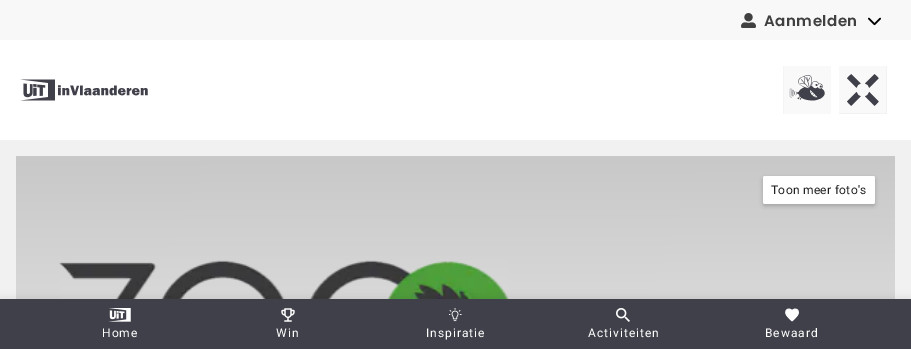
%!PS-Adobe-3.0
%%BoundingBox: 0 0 911 349
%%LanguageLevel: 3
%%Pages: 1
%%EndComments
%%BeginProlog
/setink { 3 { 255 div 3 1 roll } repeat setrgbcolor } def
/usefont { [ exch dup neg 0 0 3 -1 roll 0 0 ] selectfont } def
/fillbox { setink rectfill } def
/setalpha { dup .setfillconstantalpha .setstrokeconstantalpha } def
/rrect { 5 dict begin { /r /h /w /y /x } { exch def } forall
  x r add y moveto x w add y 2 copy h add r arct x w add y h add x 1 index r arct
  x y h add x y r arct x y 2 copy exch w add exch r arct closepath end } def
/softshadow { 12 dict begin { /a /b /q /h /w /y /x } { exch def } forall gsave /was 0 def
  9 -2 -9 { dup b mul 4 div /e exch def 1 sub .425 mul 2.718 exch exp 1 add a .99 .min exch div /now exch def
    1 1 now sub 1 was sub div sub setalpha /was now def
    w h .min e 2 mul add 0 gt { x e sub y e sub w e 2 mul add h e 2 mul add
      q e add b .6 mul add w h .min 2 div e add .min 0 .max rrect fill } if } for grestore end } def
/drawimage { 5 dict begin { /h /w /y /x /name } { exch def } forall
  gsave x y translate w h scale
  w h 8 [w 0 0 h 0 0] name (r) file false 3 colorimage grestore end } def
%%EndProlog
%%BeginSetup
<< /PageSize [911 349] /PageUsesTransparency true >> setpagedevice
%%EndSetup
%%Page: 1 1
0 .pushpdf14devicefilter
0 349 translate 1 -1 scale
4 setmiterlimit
0 0 911 349 248 248 248 fillbox
(assets/img1.rgb) 741 13 15 15 drawimage
/Poppins-SemiBold 15 usefont
64 64 64 setink
764 26 moveto 0.5 0 (Aanmelden) ashow
(assets/img2.rgb) 868 17 13 9 drawimage
0 40 911 100 255 255 255 fillbox
0 140 911 159 241 241 241 fillbox
gsave 16 156 moveto 895 156 lineto 895 299 lineto 16 299 lineto closepath clip newpath
<< /ShadingType 2 /ColorSpace /DeviceRGB /Coords [455 156 456 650] /Extend [true true] /Function << /FunctionType 2 /Domain [0 1] /C0 [0.784 0.784 0.784] /C1 [1 1 1] /N 1 >> >> shfill grestore
(assets/img3.rgb) 59 260 451 39 drawimage
0 0 0 setink
763 178 112 28 2 2 0.2 softshadow
255 255 255 setink
763 176 112 28 2 rrect fill
/Roboto-Regular 12 usefont
33 33 33 setink
771 194 moveto 0.3 0 (Toon meer foto's) ashow
(assets/img4.rgb) 20 79 128 22 drawimage
(assets/img5.rgb) 783 66 48 48 drawimage
839 66 48 48 225 225 225 fillbox
(assets/img6.rgb) 839 66 48 48 drawimage
0 0 0 setink
0 300 911 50 0 5 0.12 softshadow
0 299 911 50 64 64 74 fillbox
(assets/img7.rgb) 108 308 23 14 drawimage
255 255 255 setink
102 337 moveto 1 0 (Home) ashow
(assets/img8.rgb) 281 308 14 14 drawimage
276 337 moveto 1 0 (Win) ashow
(assets/img9.rgb) 449 308 13 14 drawimage
426 337 moveto 1 0 (Inspiratie) ashow
(assets/img10.rgb) 616 308 14 14 drawimage
588 337 moveto 1 0 (Activiteiten) ashow
(assets/img11.rgb) 785 308 14 14 drawimage
765 337 moveto 1 0 (Bewaard) ashow
.poppdf14devicefilter showpage
%%EOF
